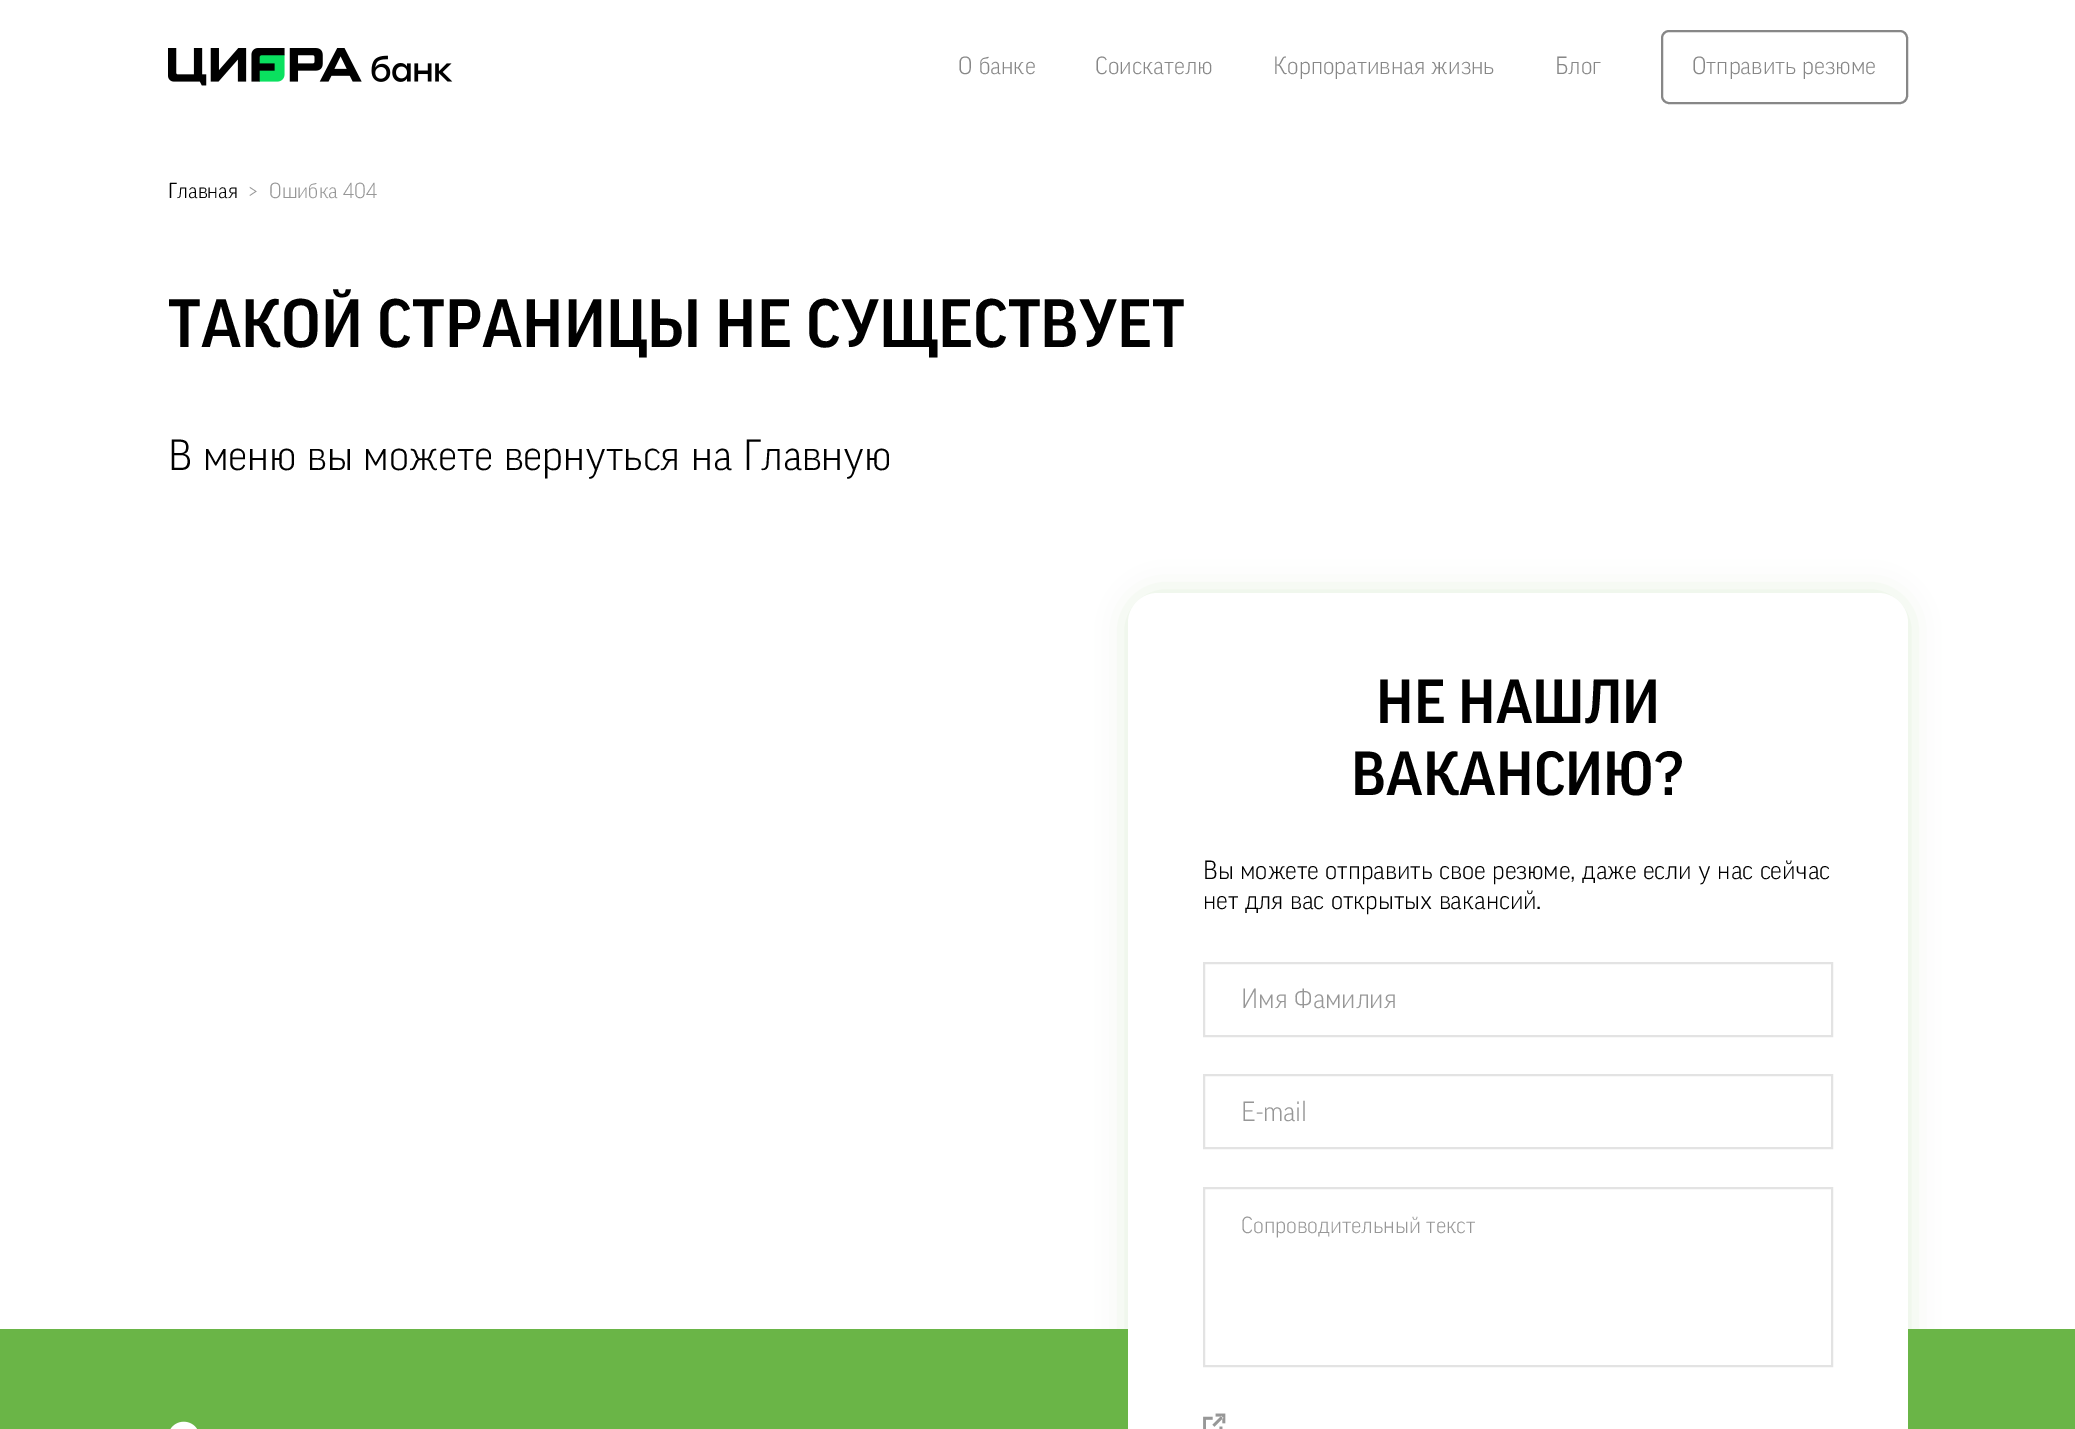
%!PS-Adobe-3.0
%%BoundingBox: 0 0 2075 1429
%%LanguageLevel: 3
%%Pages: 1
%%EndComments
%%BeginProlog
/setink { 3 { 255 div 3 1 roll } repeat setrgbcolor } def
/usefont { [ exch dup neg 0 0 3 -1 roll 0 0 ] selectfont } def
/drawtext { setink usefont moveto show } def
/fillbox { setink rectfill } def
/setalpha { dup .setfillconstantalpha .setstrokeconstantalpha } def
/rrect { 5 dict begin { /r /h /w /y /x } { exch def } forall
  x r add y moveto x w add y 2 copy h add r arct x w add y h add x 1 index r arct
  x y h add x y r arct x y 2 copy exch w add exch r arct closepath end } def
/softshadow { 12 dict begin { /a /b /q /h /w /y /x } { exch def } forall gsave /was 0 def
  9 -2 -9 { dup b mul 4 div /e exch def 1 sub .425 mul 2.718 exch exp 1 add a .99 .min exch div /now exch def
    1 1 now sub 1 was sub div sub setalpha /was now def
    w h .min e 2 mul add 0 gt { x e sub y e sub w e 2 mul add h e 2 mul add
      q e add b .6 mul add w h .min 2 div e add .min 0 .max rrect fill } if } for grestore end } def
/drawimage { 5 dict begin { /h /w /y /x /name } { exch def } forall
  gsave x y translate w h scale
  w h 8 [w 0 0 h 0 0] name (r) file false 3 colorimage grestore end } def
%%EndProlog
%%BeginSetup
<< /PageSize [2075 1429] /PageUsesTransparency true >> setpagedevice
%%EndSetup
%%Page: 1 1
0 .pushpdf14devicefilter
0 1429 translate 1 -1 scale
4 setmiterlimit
0 0 2075 1429 255 255 255 fillbox
(assets/img1.rgb) 168 48 285 38 drawimage
(О банке) 958 74 /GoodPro-Light 24 135 135 135 drawtext
(Соискателю) 1095 74 /GoodPro-Light 24 135 135 135 drawtext
(Корпоративная жизнь) 1273 74 /GoodPro-Light 24 135 135 135 drawtext
(Блог) 1555 74 /GoodPro-Light 24 135 135 135 drawtext
2 setlinewidth
1662 31 245 72 7 rrect stroke
(Отправить резюме) 1692 74 /GoodPro-Light 24 135 135 135 drawtext
(Главная) 168 198 /GoodPro-Light 21 0 0 0 drawtext
(>) 248 198 /GoodPro-Light 21 151 151 151 drawtext
(Ошибка 404) 269 198 /GoodPro-Light 21 151 151 151 drawtext
(ТАКОЙ СТРАНИЦЫ НЕ СУЩЕСТВУЕТ) 168 347 /GoodPro-Medium 66 0 0 0 drawtext
(В меню вы можете вернуться на Главную) 168 470 /GoodPro-Light 42 0 0 0 drawtext
0 1329 2075 100 106 181 71 fillbox
1128 593 780 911 30 15 0.2 softshadow
255 255 255 setink
1128 593 780 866 30 rrect fill
(НЕ НАШЛИ) 1376 723 /GoodPro-Medium 60 0 0 0 drawtext
(ВАКАНСИЮ?) 1351 795 /GoodPro-Medium 60 0 0 0 drawtext
(Вы можете отправить свое резюме, даже если у нас сейчас) 1203 879 /GoodPro-Light 25.5 0 0 0 drawtext
(нет для вас открытых вакансий.) 1203 909 /GoodPro-Light 25.5 0 0 0 drawtext
227 227 227 setink
1204 963 628 73 rectstroke
(Имя Фамилия) 1241 1008 /GoodPro-Light 27 151 151 151 drawtext
227 227 227 setink
1204 1075 628 73 rectstroke
(E-mail) 1241 1121 /GoodPro-Light 27 151 151 151 drawtext
227 227 227 setink
1204 1188 628 178 rectstroke
(Сопроводительный текст) 1241 1233 /GoodPro-Light 22.5 151 151 151 drawtext
(assets/img2.rgb) 1203 1413 23 16 drawimage
(assets/img3.rgb) 170 1421 27 8 drawimage
.poppdf14devicefilter showpage
%%EOF
